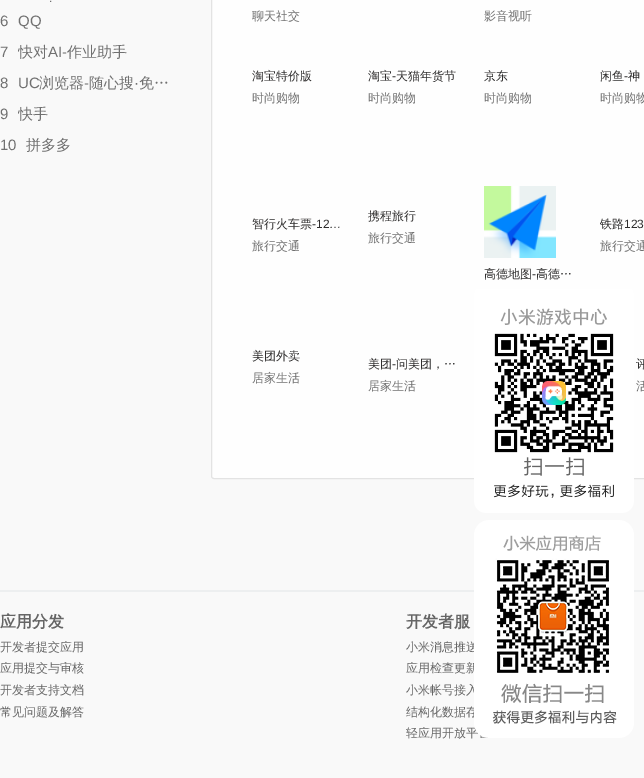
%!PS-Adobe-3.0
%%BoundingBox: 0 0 644 778
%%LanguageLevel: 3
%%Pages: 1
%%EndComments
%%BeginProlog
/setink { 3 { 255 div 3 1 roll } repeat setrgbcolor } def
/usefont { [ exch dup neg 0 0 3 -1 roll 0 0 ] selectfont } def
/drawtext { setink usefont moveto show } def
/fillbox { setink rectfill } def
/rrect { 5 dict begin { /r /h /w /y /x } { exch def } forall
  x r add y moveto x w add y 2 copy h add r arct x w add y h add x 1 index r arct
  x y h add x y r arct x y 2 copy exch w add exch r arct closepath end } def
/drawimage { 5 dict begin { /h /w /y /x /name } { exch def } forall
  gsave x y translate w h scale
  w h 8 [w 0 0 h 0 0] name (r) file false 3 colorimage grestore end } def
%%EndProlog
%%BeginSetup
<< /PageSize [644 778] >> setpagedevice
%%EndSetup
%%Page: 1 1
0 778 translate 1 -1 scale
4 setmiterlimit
0 0 644 778 249 249 249 fillbox
(.) 49 2 /LiberationSans-Regular 12 112 112 112 drawtext
(6) 0 26 /LiberationSans-Regular 15 112 112 112 drawtext
(QQ) 18 26 /LiberationSans-Regular 15 112 112 112 drawtext
(7) 0 57 /LiberationSans-Regular 15 112 112 112 drawtext
gsave
18 36 155 29 rectclip
(快对) 18 57 /WenQuanYiZenHei-Medium 15 112 112 112 drawtext
grestore
(AI-) 48 57 /LiberationSans-Regular 15 112 112 112 drawtext
(作业助手) 67 57 /WenQuanYiZenHei-Medium 15 112 112 112 drawtext
(8) 0 88 /LiberationSans-Regular 15 112 112 112 drawtext
(UC) 18 88 /LiberationSans-Regular 15 112 112 112 drawtext
(浏览器) 39 88 /WenQuanYiZenHei-Medium 15 112 112 112 drawtext
(-) 84 88 /LiberationSans-Regular 15 112 112 112 drawtext
(随心搜) 89 88 /WenQuanYiZenHei-Medium 15 112 112 112 drawtext
(·) 134 88 /LiberationSans-Regular 15 112 112 112 drawtext
(免…) 139 88 /WenQuanYiZenHei-Medium 15 112 112 112 drawtext
(9) 0 119 /LiberationSans-Regular 15 112 112 112 drawtext
gsave
18 98 155 29 rectclip
(快手) 18 119 /WenQuanYiZenHei-Medium 15 112 112 112 drawtext
grestore
(10) 0 150 /LiberationSans-Regular 15 112 112 112 drawtext
(拼多多) 26 150 /WenQuanYiZenHei-Medium 15 112 112 112 drawtext
254 254 254 setink
211.5 -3.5 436 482 2.5 rrect gsave fill grestore
227 227 227 setink
stroke
(聊天社交) 252 20 /WenQuanYiZenHei-Medium 12 112 112 112 drawtext
(影音视听) 484 20 /WenQuanYiZenHei-Medium 12 112 112 112 drawtext
(淘宝特价版) 252 80 /WenQuanYiZenHei-Medium 12 47 46 46 drawtext
(时尚购物) 252 102 /WenQuanYiZenHei-Medium 12 112 112 112 drawtext
(淘宝) 368 80 /WenQuanYiZenHei-Medium 12 47 46 46 drawtext
(-) 392 80 /LiberationSans-Regular 12 47 46 46 drawtext
(天猫年货节) 396 80 /WenQuanYiZenHei-Medium 12 47 46 46 drawtext
(时尚购物) 368 102 /WenQuanYiZenHei-Medium 12 112 112 112 drawtext
(京东) 484 80 /WenQuanYiZenHei-Medium 12 47 46 46 drawtext
(时尚购物) 484 102 /WenQuanYiZenHei-Medium 12 112 112 112 drawtext
(闲鱼) 600 80 /WenQuanYiZenHei-Medium 12 47 46 46 drawtext
(-) 624 80 /LiberationSans-Regular 12 47 46 46 drawtext
(神) 628 80 /WenQuanYiZenHei-Medium 12 47 46 46 drawtext
(时尚购物) 600 102 /WenQuanYiZenHei-Medium 12 112 112 112 drawtext
(智行火车票) 252 228 /WenQuanYiZenHei-Medium 12 47 46 46 drawtext
(-12…) 312 228 /LiberationSans-Regular 12 47 46 46 drawtext
(旅行交通) 252 250 /WenQuanYiZenHei-Medium 12 112 112 112 drawtext
(携程旅行) 368 220 /WenQuanYiZenHei-Medium 12 47 46 46 drawtext
(旅行交通) 368 242 /WenQuanYiZenHei-Medium 12 112 112 112 drawtext
(铁路) 600 228 /WenQuanYiZenHei-Medium 12 47 46 46 drawtext
(123) 624 228 /LiberationSans-Regular 12 47 46 46 drawtext
(旅行交通) 600 250 /WenQuanYiZenHei-Medium 12 112 112 112 drawtext
(assets/img1.rgb) 484 186 72 72 drawimage
(高德地图) 484 278 /WenQuanYiZenHei-Medium 12 47 46 46 drawtext
(-) 532 278 /LiberationSans-Regular 12 47 46 46 drawtext
(高德…) 536 278 /WenQuanYiZenHei-Medium 12 47 46 46 drawtext
(美团外卖) 252 360 /WenQuanYiZenHei-Medium 12 47 46 46 drawtext
(居家生活) 252 382 /WenQuanYiZenHei-Medium 12 112 112 112 drawtext
(美团) 368 368 /WenQuanYiZenHei-Medium 12 47 46 46 drawtext
(-) 392 368 /LiberationSans-Regular 12 47 46 46 drawtext
(问美团，…) 396 368 /WenQuanYiZenHei-Medium 12 47 46 46 drawtext
(居家生活) 368 390 /WenQuanYiZenHei-Medium 12 112 112 112 drawtext
(评) 636 368 /WenQuanYiZenHei-Medium 12 47 46 46 drawtext
(活) 636 390 /WenQuanYiZenHei-Medium 12 112 112 112 drawtext
(assets/img2.rgb) 474 289 160 224 drawimage
(assets/img3.rgb) 494 333 120 120 drawimage
0 590 644 2 237 239 240 fillbox
(应用分发) 0 627 /WenQuanYiZenHei-Bold 16 102 102 102 drawtext
(开发者提交应用) 0 651 /WenQuanYiZenHei-Medium 12 102 102 102 drawtext
(应用提交与审核) 0 672 /WenQuanYiZenHei-Medium 12 102 102 102 drawtext
(开发者支持文档) 0 694 /WenQuanYiZenHei-Medium 12 102 102 102 drawtext
(常见问题及解答) 0 716 /WenQuanYiZenHei-Medium 12 102 102 102 drawtext
(开发者服) 406 627 /WenQuanYiZenHei-Bold 16 102 102 102 drawtext
(小米消息推送) 406 651 /WenQuanYiZenHei-Medium 12 102 102 102 drawtext
(应用检查更新) 406 672 /WenQuanYiZenHei-Medium 12 102 102 102 drawtext
(小米帐号接入) 406 694 /WenQuanYiZenHei-Medium 12 102 102 102 drawtext
(结构化数据存) 406 716 /WenQuanYiZenHei-Medium 12 102 102 102 drawtext
(轻应用开放平) 406 737 /WenQuanYiZenHei-Medium 12 102 102 102 drawtext
(assets/img4.rgb) 474 520 160 218 drawimage
showpage
%%EOF
